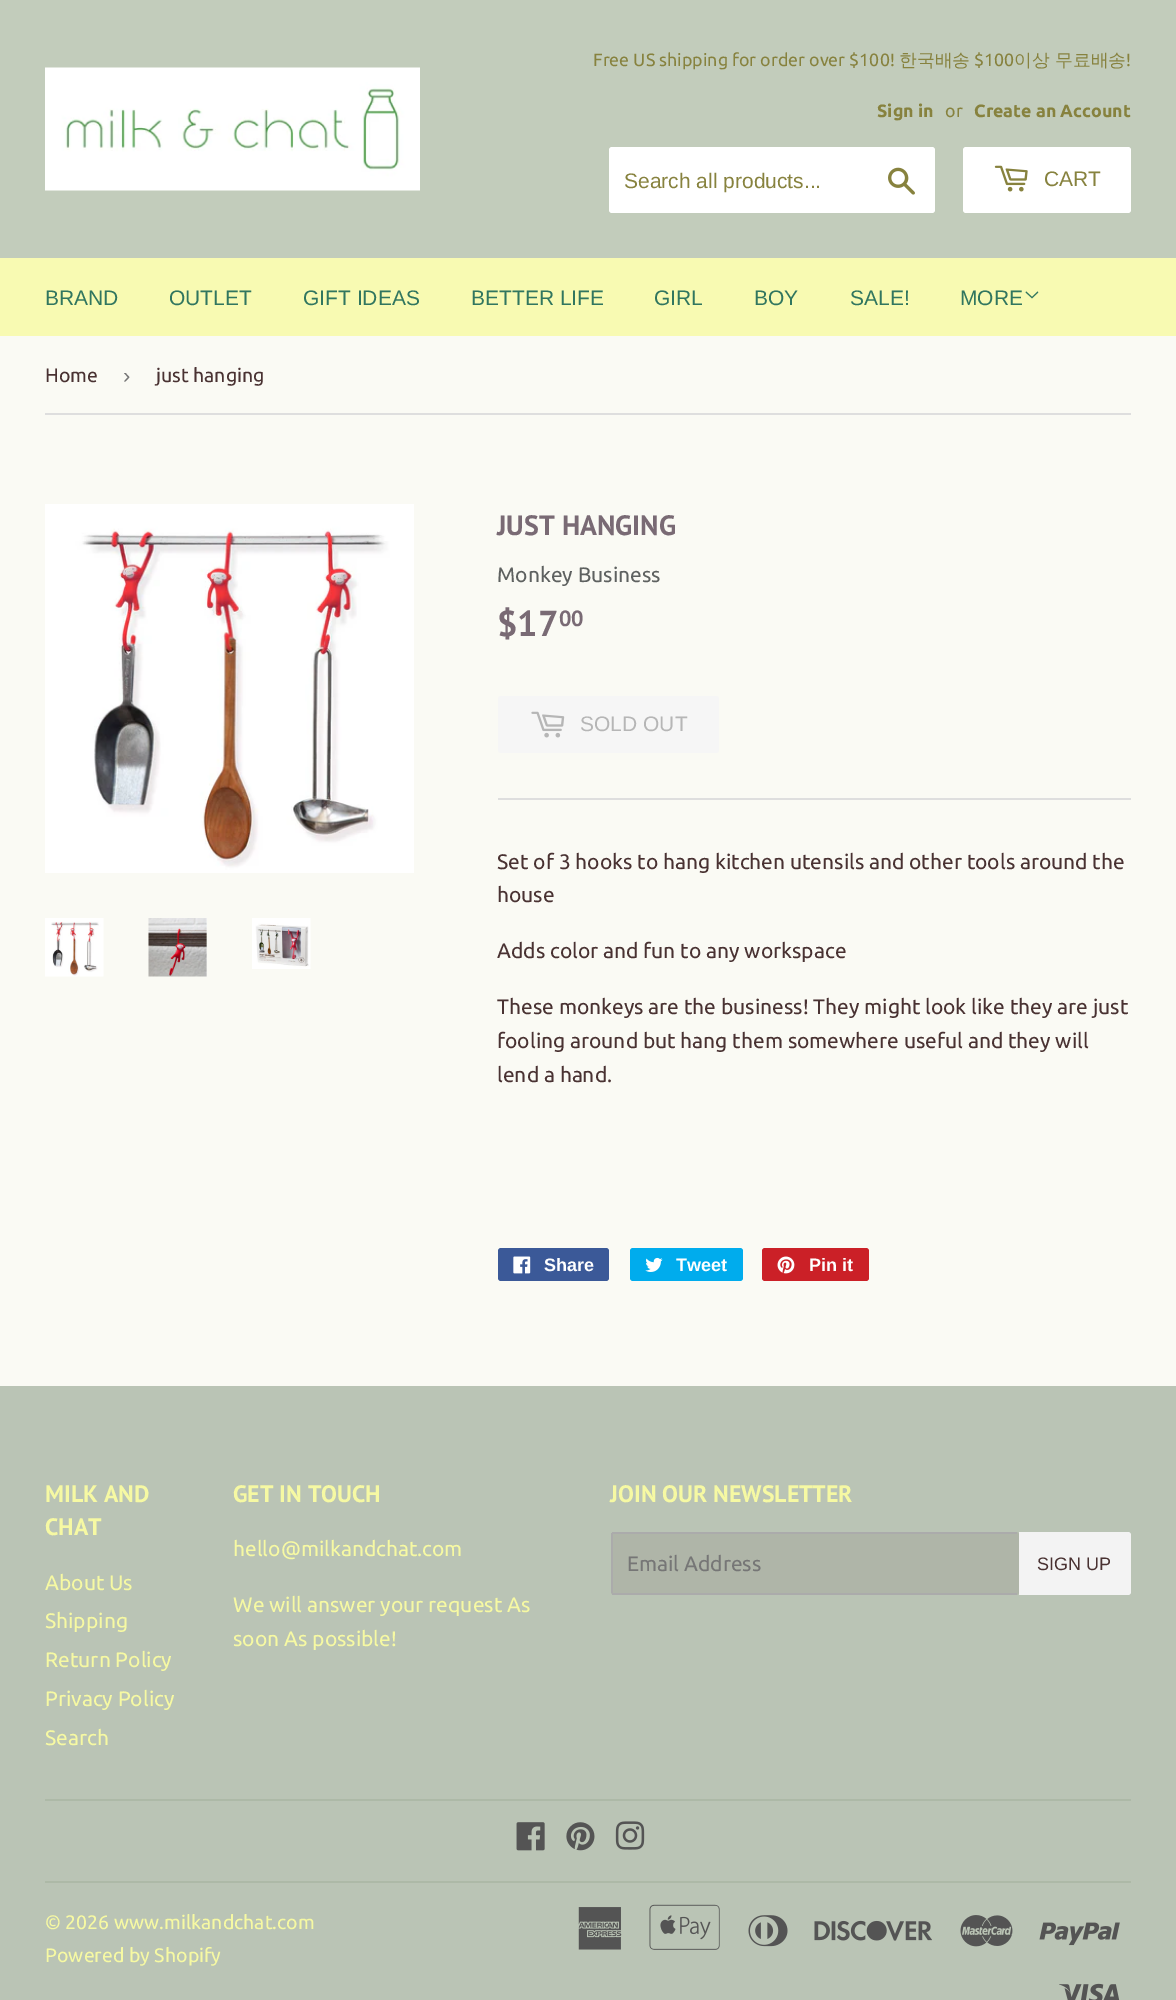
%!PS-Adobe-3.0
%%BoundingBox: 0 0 1176 2000
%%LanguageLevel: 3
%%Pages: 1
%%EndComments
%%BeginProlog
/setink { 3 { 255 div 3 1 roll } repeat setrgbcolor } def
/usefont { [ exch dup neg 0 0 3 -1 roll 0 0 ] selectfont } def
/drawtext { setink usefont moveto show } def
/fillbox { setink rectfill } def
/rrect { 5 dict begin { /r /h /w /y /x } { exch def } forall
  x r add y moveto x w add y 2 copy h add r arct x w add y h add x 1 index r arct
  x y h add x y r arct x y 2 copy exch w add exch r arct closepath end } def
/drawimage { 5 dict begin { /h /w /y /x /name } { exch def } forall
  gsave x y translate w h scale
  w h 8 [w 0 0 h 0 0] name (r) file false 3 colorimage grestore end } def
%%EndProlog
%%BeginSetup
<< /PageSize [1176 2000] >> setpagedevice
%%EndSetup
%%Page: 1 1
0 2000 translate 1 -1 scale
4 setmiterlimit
0 0 1176 2000 250 250 244 fillbox
0 0 1176 258 194 204 187 fillbox
(assets/img1.rgb) 45 67 375 124 drawimage
(Free US shipping for order over $100!) 593 66 /Ubuntu-Regular 17.8 135 130 62 drawtext
(한국배송) 899 66 /WenQuanYiZenHei-Medium 17.8 135 130 62 drawtext
($100) 974 66 /Ubuntu-Regular 17.8 135 130 62 drawtext
(이상 무료배송) 1014 66 /WenQuanYiZenHei-Medium 17.8 135 130 62 drawtext
(!) 1126 66 /Ubuntu-Regular 17.8 135 130 62 drawtext
(Sign in) 877 117 /Ubuntu-Bold 17.8 135 130 62 drawtext
(or) 945 117 /Ubuntu-Regular 17.8 135 130 62 drawtext
(Create an Account) 974 117 /Ubuntu-Bold 17.8 135 130 62 drawtext
255 255 255 setink
609 147 326 66 3 rrect fill
(Search all products...) 624 188 /LiberationSans-Regular 21 135 130 62 drawtext
(assets/img2.rgb) 888 167 27 28 drawimage
255 255 255 setink
963 147 168 66 3 rrect fill
(assets/img3.rgb) 994 165 34 27 drawimage
(CART) 1044 186 /LiberationSans-Regular 21 135 130 62 drawtext
0 258 1176 78 248 250 178 fillbox
(BRAND) 45 305 /LiberationSans-Regular 21 49 118 95 drawtext
(OUTLET) 169 305 /LiberationSans-Regular 21 49 118 95 drawtext
(GIFT IDEAS) 303 305 /LiberationSans-Regular 21 49 118 95 drawtext
(BETTER LIFE) 471 305 /LiberationSans-Regular 21 49 118 95 drawtext
(GIRL) 654 305 /LiberationSans-Regular 21 49 118 95 drawtext
(BOY) 754 305 /LiberationSans-Regular 21 49 118 95 drawtext
(SALE!) 850 305 /LiberationSans-Regular 21 49 118 95 drawtext
(MORE) 960 305 /LiberationSans-Regular 21 49 118 95 drawtext
(assets/img4.rgb) 1025 291 14 8 drawimage
45 413 1086 2 222 222 222 fillbox
(Home) 45 382 /Ubuntu-Regular 19.5 73 50 50 drawtext
(›) 123 383 /LiberationSans-Regular 22 118 118 118 drawtext
(just hanging) 156 382 /Ubuntu-Regular 19.5 73 50 50 drawtext
(assets/img5.rgb) 45 504 369 369 drawimage
(assets/img6.rgb) 45 918 59 59 drawimage
(assets/img7.rgb) 148 918 59 59 drawimage
(assets/img8.rgb) 252 918 59 51 drawimage
(JUST HANGING) 497 535 /PTSans-Bold 28 121 106 116 drawtext
(Monkey Business) 497 582 /Ubuntu-Regular 21 94 97 96 drawtext
($17) 497 636 /PTSans-Bold 36 121 106 116 drawtext
(00) 559 626 /PTSans-Bold 22 121 106 116 drawtext
246 246 246 setink
498 696 221 57 3 rrect fill
(assets/img9.rgb) 531 711 34 27 drawimage
(SOLD OUT) 580 731 /LiberationSans-Regular 21 182 182 182 drawtext
498 798 633 2 222 222 222 fillbox
(Set of 3 hooks to hang kitchen utensils and other tools around the) 497 869 /Ubuntu-Regular 21 73 50 50 drawtext
(house) 497 902 /Ubuntu-Regular 21 73 50 50 drawtext
(Adds color and fun to any workspace) 497 958 /Ubuntu-Regular 21 73 50 50 drawtext
(These monkeys are the business! They might look like they are just) 497 1014 /Ubuntu-Regular 21 73 50 50 drawtext
(fooling around but hang them somewhere useful and they will) 497 1048 /Ubuntu-Regular 21 73 50 50 drawtext
(lend a hand.) 497 1082 /Ubuntu-Regular 21 73 50 50 drawtext
59 89 152 setink
498 1248 111 33 3 rrect fill
(assets/img10.rgb) 513 1256 18 18 drawimage
(Share) 544 1271 /LiberationSans-Bold 18 255 255 255 drawtext
0 172 237 setink
630 1248 113 33 3 rrect fill
(assets/img11.rgb) 645 1257 18 15 drawimage
(Tweet) 676 1271 /LiberationSans-Bold 18 255 255 255 drawtext
203 32 39 setink
762 1248 107 33 3 rrect fill
(assets/img12.rgb) 777 1256 18 18 drawimage
(Pin it) 809 1271 /LiberationSans-Bold 18 255 255 255 drawtext
0 1386 1176 614 186 196 181 fillbox
(MILK AND) 45 1502 /PTSans-Bold 23.75 246 249 163 drawtext
(CHAT) 45 1535 /PTSans-Bold 23.75 246 249 163 drawtext
(About Us) 45 1590 /Ubuntu-Regular 21 246 249 163 drawtext
(Shipping) 45 1628 /Ubuntu-Regular 21 246 249 163 drawtext
(Return Policy) 45 1667 /Ubuntu-Regular 21 246 249 163 drawtext
(Privacy Policy) 45 1706 /Ubuntu-Regular 21 246 249 163 drawtext
(Search) 45 1745 /Ubuntu-Regular 21 246 249 163 drawtext
(GET IN TOUCH) 233 1502 /PTSans-Bold 23.75 246 249 163 drawtext
(hello@milkandchat.com) 233 1556 /Ubuntu-Regular 21 246 249 163 drawtext
(We will answer your request As) 233 1612 /Ubuntu-Regular 21 246 249 163 drawtext
(soon As possible!) 233 1646 /Ubuntu-Regular 21 246 249 163 drawtext
(JOIN OUR NEWSLETTER) 610 1502 /PTSans-Bold 23.75 246 249 163 drawtext
175 181 168 setink
611 1532 408 63 3 rrect fill
612 1532 405 2 171 171 171 fillbox
612 1593 405 2 171 171 171 fillbox
611 1533 2 60 171 171 171 fillbox
(Email Address) 627 1571 /Ubuntu-Regular 21 118 118 118 drawtext
243 243 243 setink
1019 1532 moveto 1128 1532 lineto 1129.5 1532 1131 1533.5 1131 1535 curveto 1131 1592 lineto 1131 1593.5 1129.5 1595 1128 1595 curveto 1019 1595 lineto closepath fill
(SIGN UP) 1037 1570 /LiberationSans-Regular 18 73 50 50 drawtext
45 1799 1086 2 173 185 167 fillbox
(assets/img13.rgb) 516 1822 29 29 drawimage
(assets/img14.rgb) 566 1822 29 29 drawimage
(assets/img15.rgb) 615 1821 30 29 drawimage
45 1881 1086 2 173 185 167 fillbox
(© 2026 www.milkandchat.com) 45 1929 /Ubuntu-Regular 19.5 246 249 163 drawtext
(Powered by Shopify) 45 1962 /Ubuntu-Regular 19.5 246 249 163 drawtext
(assets/img16.rgb) 578 1907 44 43 drawimage
(assets/img17.rgb) 649 1904 71 46 drawimage
(assets/img18.rgb) 748 1915 40 32 drawimage
(assets/img19.rgb) 814 1920 118 21 drawimage
(assets/img20.rgb) 960 1915 53 32 drawimage
(assets/img21.rgb) 1039 1922 81 24 drawimage
(assets/img22.rgb) 1059 1983 61 17 drawimage
showpage
%%EOF
